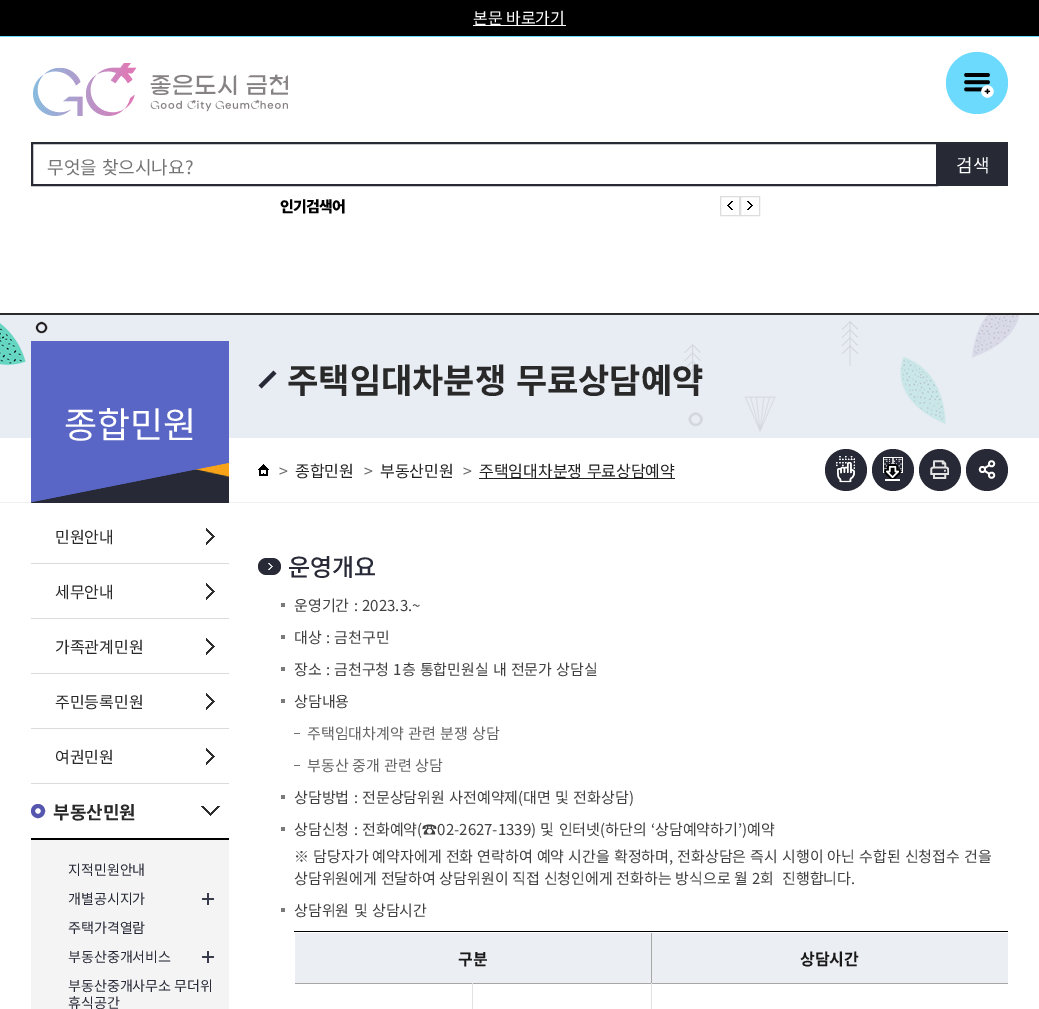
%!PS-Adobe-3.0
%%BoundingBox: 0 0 1039 1009
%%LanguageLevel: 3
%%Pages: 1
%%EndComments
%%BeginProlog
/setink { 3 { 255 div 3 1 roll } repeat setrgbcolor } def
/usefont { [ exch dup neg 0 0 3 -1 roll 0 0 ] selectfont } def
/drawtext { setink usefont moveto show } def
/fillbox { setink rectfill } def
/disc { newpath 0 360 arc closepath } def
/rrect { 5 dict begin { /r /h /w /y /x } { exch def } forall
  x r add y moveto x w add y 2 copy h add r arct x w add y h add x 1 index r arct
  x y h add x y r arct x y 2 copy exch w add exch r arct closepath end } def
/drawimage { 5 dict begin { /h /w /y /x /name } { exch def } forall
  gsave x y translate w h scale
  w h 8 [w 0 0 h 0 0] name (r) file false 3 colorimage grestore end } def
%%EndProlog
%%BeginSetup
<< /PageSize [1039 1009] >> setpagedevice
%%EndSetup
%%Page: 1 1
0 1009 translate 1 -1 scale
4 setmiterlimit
0 0 1039 1009 255 255 255 fillbox
0 313 1039 2 42 42 42 fillbox
0 0 1039 36 0 0 0 fillbox
473 25 93 1 255 255 255 fillbox
(본문 바로가기) 473 24 /NotoSansKR-Regular 16 255 255 255 drawtext
0 36 1039 1 107 218 252 fillbox
(assets/img1.rgb) 33 63 255 53 drawimage
977 83 31 disc fill
(assets/img2.rgb) 964 73 30 25 drawimage
39 42 53 setink
2 setlinewidth
32 143 905 42 rectstroke
/NotoSansKR-Regular 18 usefont
117 117 117 setink
47 174 moveto 1 0 32 (무엇을 찾으시나요?) widthshow
938 142 70 44 39 42 53 fillbox
(검색) 956 172 /NotoSansKR-Regular 18 255 255 255 drawtext
/NotoSansKR-Black 15 usefont
0 0 0 setink
280 212 moveto -0.75 0 (인기검색어) ashow
(assets/img3.rgb) 727 201 6 9 drawimage
221 221 221 setink
1 setlinewidth
720.5 196.5 19 19 rectstroke
(assets/img4.rgb) 747 201 6 9 drawimage
740.5 196.5 19 19 rectstroke
0 315 1039 123 232 236 243 fillbox
(assets/img9.rgb) 0 321 48 45 drawimage
31 341 198 161 90 102 197 fillbox
(종합민원) 64 438 /NotoSansKR-Regular 36 255 255 255 drawtext
0 502 1039 1 240 240 240 fillbox
(assets/img5.rgb) 31 463 198 40 drawimage
31 563 198 1 219 219 219 fillbox
(민원안내) 55 543 /NotoSansKR-Regular 16 41 41 41 drawtext
(assets/img6.rgb) 206 528 9 17 drawimage
31 618 198 1 219 219 219 fillbox
(세무안내) 55 598 /NotoSansKR-Regular 16 41 41 41 drawtext
(assets/img6.rgb) 206 583 9 17 drawimage
31 673 198 1 219 219 219 fillbox
(가족관계민원) 55 653 /NotoSansKR-Regular 16 41 41 41 drawtext
(assets/img6.rgb) 206 638 9 17 drawimage
31 728 198 1 219 219 219 fillbox
(주민등록민원) 55 708 /NotoSansKR-Regular 16 41 41 41 drawtext
(assets/img6.rgb) 206 693 9 17 drawimage
31 783 198 1 219 219 219 fillbox
(여권민원) 55 763 /NotoSansKR-Regular 16 41 41 41 drawtext
(assets/img6.rgb) 206 748 9 17 drawimage
85 87 174 setink
4 setlinewidth
38 811 5 disc stroke
(부동산민원) 53 819 /NotoSansKR-Bold 18 41 41 41 drawtext
(assets/img7.rgb) 201 806 19 10 drawimage
31 840 198 169 244 244 244 fillbox
31 838 198 2 0 0 0 fillbox
(지적민원안내) 68 875 /NotoSansKR-Regular 14 40 42 55 drawtext
(개별공시지가) 68 904 /NotoSansKR-Regular 14 40 42 55 drawtext
(assets/img8.rgb) 202 893 12 12 drawimage
(주택가격열람) 68 933 /NotoSansKR-Regular 14 40 42 55 drawtext
(부동산중개서비스) 68 962 /NotoSansKR-Regular 14 40 42 55 drawtext
(assets/img8.rgb) 202 951 12 12 drawimage
(부동산중개사무소 무더위) 68 991 /NotoSansKR-Regular 14 40 42 55 drawtext
(휴식공간) 68 1008 /NotoSansKR-Regular 14 40 42 55 drawtext
(assets/img10.rgb) 684 315 336 117 drawimage
(assets/img11.rgb) 258 370 19 19 drawimage
/NotoSansKR-Bold 34 usefont
41 41 41 setink
287 393 moveto 2 0 32 (주택임대차분쟁 무료상담예약) widthshow
(assets/img12.rgb) 258 464 11 12 drawimage
(>) 279 477 /NotoSansKR-Regular 16 107 107 107 drawtext
(종합민원) 295 477 /NotoSansKR-Regular 16 35 35 35 drawtext
(>) 364 477 /NotoSansKR-Regular 16 107 107 107 drawtext
(부동산민원) 380 477 /NotoSansKR-Regular 16 35 35 35 drawtext
(>) 463 477 /NotoSansKR-Regular 16 107 107 107 drawtext
479 478 196 1 35 35 35 fillbox
479 477 moveto 1 0 32 (주택임대차분쟁 무료상담예약) widthshow
39 42 54 setink
846 470 21 disc fill
(assets/img13.rgb) 836 456 19 27 drawimage
893 470 21 disc fill
(assets/img14.rgb) 883 457 20 24 drawimage
940 470 21 disc fill
(assets/img15.rgb) 930 460 19 19 drawimage
987 470 21 disc fill
(assets/img16.rgb) 978 460 18 19 drawimage
40 42 55 setink
258 558 23 17 8.5 rrect fill
(운영개요) 288 576 /NotoSansKR-Medium 24 40 42 55 drawtext
(assets/img17.rgb) 268 563 5 7 drawimage
281 603 4 4 122 122 122 fillbox
/NotoSansKR-Regular 15 usefont
65 65 65 setink
294 611 moveto 1 0 32 (운영기간 : 2023.3.~) widthshow
281 635 4 4 122 122 122 fillbox
65 65 65 setink
294 643 moveto 1 0 32 (대상 : 금천구민) widthshow
281 667 4 4 122 122 122 fillbox
65 65 65 setink
294 675 moveto 0.75 0 32 (장소 : 금천구청 1층 통합민원실 내 전문가 상담실) widthshow
281 699 4 4 122 122 122 fillbox
(상담내용) 294 707 /NotoSansKR-Regular 15 65 65 65 drawtext
294 733 6 1 114 114 114 fillbox
101 101 101 setink
307 739 moveto 1 0 32 (주택임대차계약 관련 분쟁 상담) widthshow
294 765 6 1 114 114 114 fillbox
101 101 101 setink
307 771 moveto 0.5 0 32 (부동산 중개 관련 상담) widthshow
281 795 4 4 122 122 122 fillbox
65 65 65 setink
294 803 moveto 1 0 32 (상담방법 : 전문상담위원 사전예약제\(대면 및 전화상담\)) widthshow
281 827 4 4 122 122 122 fillbox
65 65 65 setink
294 835 moveto 1 0 32 (상담신청 : 전화예약\(☎02-2627-1339\) 및 인터넷\(하단의 ‘상담예약하기’\)예약) widthshow
294 862 moveto 0.75 0 32 (※ 담당자가 예약자에게 전화 연락하여 예약 시간을 확정하며, 전화상담은 즉시 시행이 아닌 수합된 신청접수 건을) widthshow
294 884 moveto 0.4 0 32 (상담위원에게 전달하여 상담위원이 직접 신청인에게 전화하는 방식으로 월 2회) widthshow
782 884 moveto 0.4 0 32 (진행합니다.) widthshow
281 908 4 4 122 122 122 fillbox
65 65 65 setink
294 916 moveto 1 0 32 (상담위원 및 상담시간) widthshow
294 931 714 1 0 0 0 fillbox
295 933 356 50 235 238 243 fillbox
(구분) 458 965 /NotoSansKR-Bold 16 25 25 25 drawtext
652 933 356 50 235 238 243 fillbox
651 933 1 50 167 167 167 fillbox
(상담시간) 800 965 /NotoSansKR-Bold 16 25 25 25 drawtext
294 983 714 1 167 167 167 fillbox
472 983 1 26 226 226 226 fillbox
651 983 1 26 226 226 226 fillbox
294 983 1 1 255 255 255 fillbox
showpage
%%EOF
